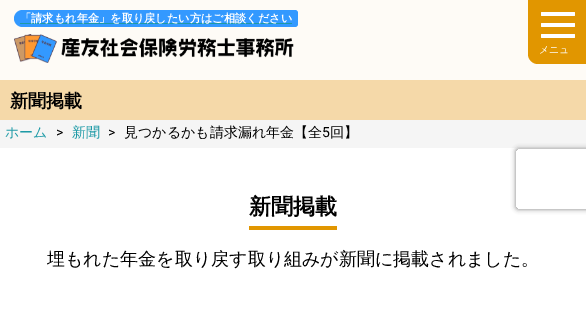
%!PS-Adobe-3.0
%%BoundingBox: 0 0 586 309
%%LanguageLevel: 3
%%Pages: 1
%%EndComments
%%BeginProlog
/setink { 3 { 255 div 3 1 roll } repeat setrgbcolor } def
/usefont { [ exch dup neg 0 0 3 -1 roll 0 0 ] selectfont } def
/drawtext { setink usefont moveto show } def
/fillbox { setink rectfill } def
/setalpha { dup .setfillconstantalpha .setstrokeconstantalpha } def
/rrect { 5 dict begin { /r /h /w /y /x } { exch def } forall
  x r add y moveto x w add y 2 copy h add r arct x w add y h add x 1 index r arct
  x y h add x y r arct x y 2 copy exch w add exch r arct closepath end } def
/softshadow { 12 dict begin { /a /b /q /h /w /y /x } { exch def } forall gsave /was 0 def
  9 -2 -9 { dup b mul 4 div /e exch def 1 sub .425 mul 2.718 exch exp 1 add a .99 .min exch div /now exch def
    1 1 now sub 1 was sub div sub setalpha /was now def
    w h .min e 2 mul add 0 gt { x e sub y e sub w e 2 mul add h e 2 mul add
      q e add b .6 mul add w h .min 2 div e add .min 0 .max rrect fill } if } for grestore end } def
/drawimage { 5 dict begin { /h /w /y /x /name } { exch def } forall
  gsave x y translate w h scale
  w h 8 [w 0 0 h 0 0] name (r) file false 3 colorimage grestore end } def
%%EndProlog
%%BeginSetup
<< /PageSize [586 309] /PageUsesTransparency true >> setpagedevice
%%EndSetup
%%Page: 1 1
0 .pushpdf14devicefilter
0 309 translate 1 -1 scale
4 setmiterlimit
0 0 586 309 255 255 255 fillbox
0 0 586 80 254 251 246 fillbox
51 153 255 setink
22.5 10 moveto 292 10 lineto 292 27 lineto 22.5 27 lineto 18 27 14 23 14 18.5 curveto 14 14 18 10 22.5 10 curveto closepath fill
20 23 272 1 29 154 166 fillbox
(「請求もれ年金」を取り戻したい方はご相談ください) 20 22 /WenQuanYiZenHei-Bold 11.2 255 255 255 drawtext
51 153 255 setink
292 10 moveto 295 10 lineto 296.5 10 298 11.5 298 13 curveto 298 24 lineto 298 25.5 296.5 27 295 27 curveto 292 27 lineto closepath fill
(assets/img1.rgb) 14 34 280 29 drawimage
225 150 0 setink
528 0 moveto 586 0 lineto 586 64 lineto 538 64 lineto 532.5 64 528 59.5 528 54 curveto closepath fill
255 255 255 setink
541 12 34 4 1 rrect fill
541 23 34 4 1 rrect fill
541 34 34 4 1 rrect fill
(メニュ) 539 53 /WenQuanYiZenHei-Medium 10 255 255 255 drawtext
0 80 586 40 245 217 169 fillbox
(新聞掲載) 10 107 /WenQuanYiZenHei-Bold 18 0 0 0 drawtext
0 120 586 28 245 245 245 fillbox
(ホーム) 5 137 /WenQuanYiZenHei-Medium 14 29 154 166 drawtext
(>) 56 137 /Roboto-Regular 14 0 0 0 drawtext
(新聞) 72 137 /WenQuanYiZenHei-Medium 14 29 154 166 drawtext
(>) 108 137 /Roboto-Regular 14 0 0 0 drawtext
(見つかるかも請求漏れ年金【全) 124 137 /WenQuanYiZenHei-Medium 14 0 0 0 drawtext
(5) 322 137 /Roboto-Regular 14 0 0 0 drawtext
(回】) 330 137 /WenQuanYiZenHei-Medium 14 0 0 0 drawtext
gsave
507 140 moveto 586 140 lineto 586 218 lineto 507 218 lineto closepath 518 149 moveto 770 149 lineto 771 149 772 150 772 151 curveto 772 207 lineto 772 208 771 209 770 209 curveto 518 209 lineto 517 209 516 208 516 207 curveto 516 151 lineto 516 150 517 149 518 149 curveto closepath eoclip newpath
128 128 128 setink
516 149 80 60 2 2.5 1 softshadow
grestore
(新聞掲載) 249 214 /WenQuanYiZenHei-Bold 22 0 0 0 drawtext
249 226 88 4 225 150 0 fillbox
(埋もれた年金を取り戻す取り組みが新聞に掲載されました。) 47 265 /WenQuanYiZenHei-Medium 18 0 0 0 drawtext
.poppdf14devicefilter showpage
%%EOF
